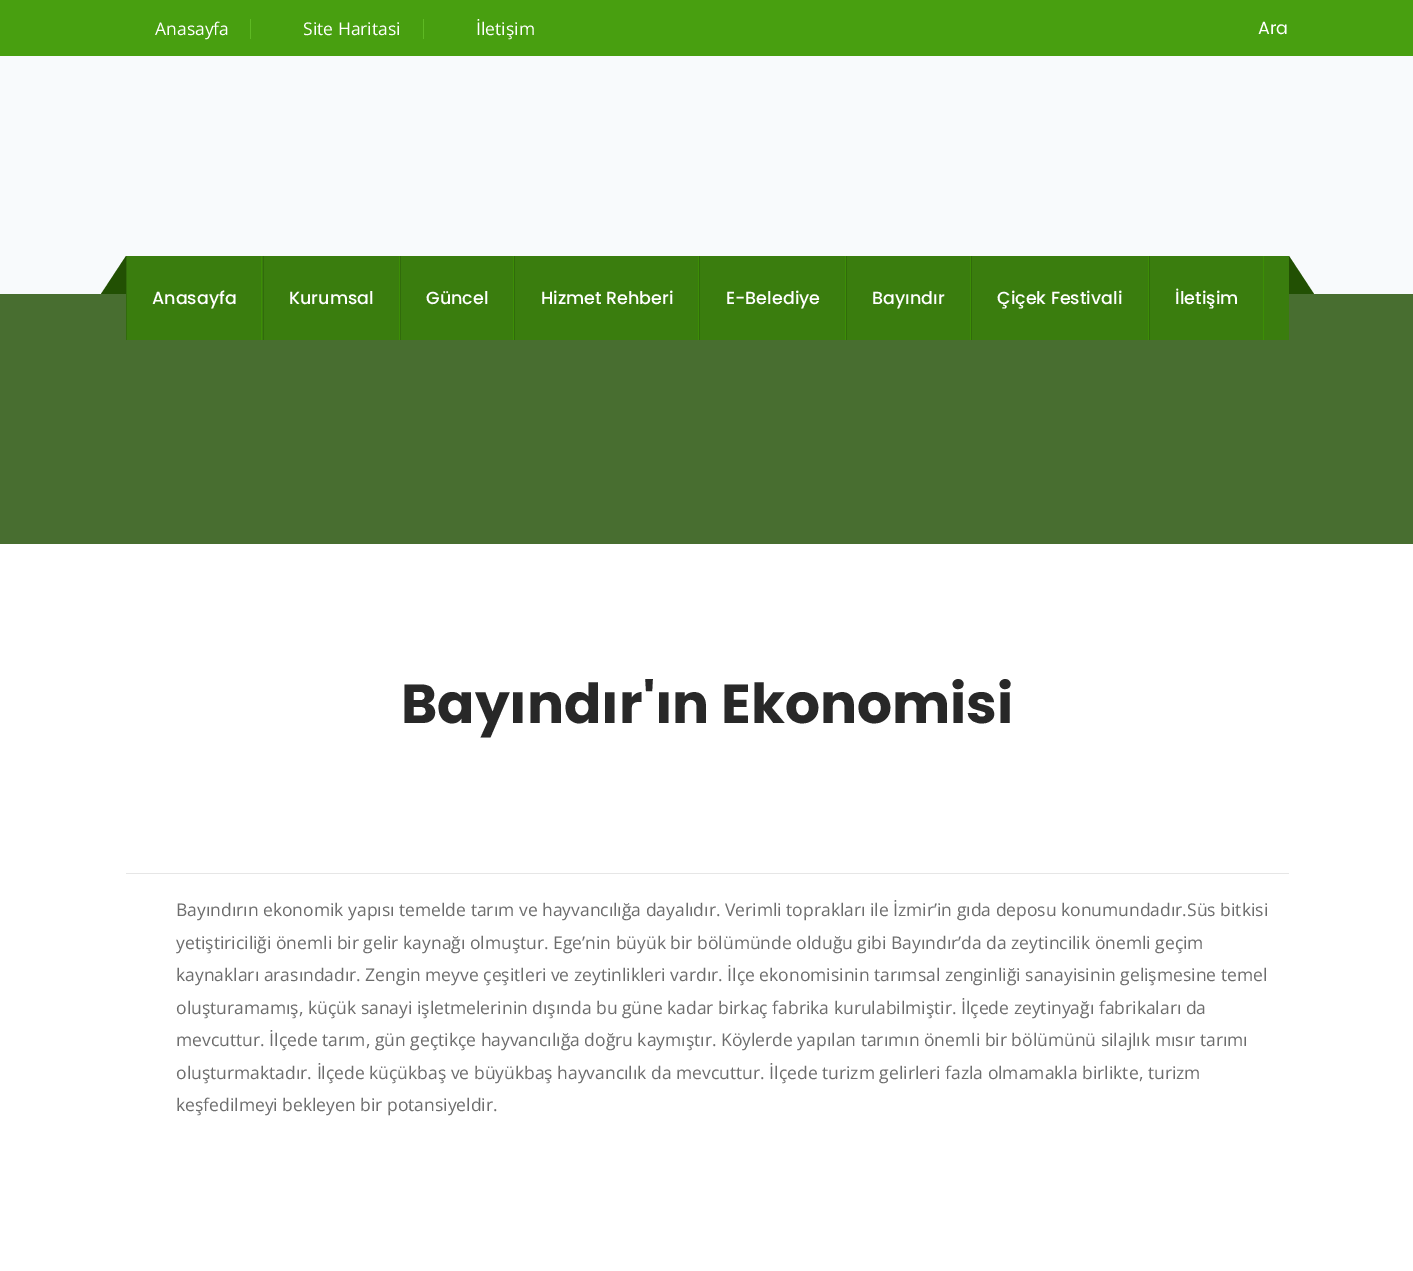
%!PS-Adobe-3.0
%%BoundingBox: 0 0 1413 1271
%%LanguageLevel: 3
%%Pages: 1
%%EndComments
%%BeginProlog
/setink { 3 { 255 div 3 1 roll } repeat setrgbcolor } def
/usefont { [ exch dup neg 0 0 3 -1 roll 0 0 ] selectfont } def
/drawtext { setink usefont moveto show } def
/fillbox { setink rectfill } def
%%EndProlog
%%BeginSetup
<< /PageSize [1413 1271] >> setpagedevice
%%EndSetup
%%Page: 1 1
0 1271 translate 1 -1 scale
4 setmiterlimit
0 0 1413 1271 248 250 252 fillbox
0 0 1413 56 72 159 16 fillbox
(Anasayfa) 155 35 /OpenSans-Regular 17.5 255 255 255 drawtext
250 19 1 20 94 185 35 fillbox
(Site Haritasi) 303 35 /OpenSans-Regular 17.5 255 255 255 drawtext
423 19 1 20 94 185 35 fillbox
(İletişim) 476 35 /OpenSans-Regular 17.5 255 255 255 drawtext
(Ara) 1258 34 /Poppins-Regular 17.5 255 255 255 drawtext
0 294 1413 250 72 110 48 fillbox
127 256 1162 84 58 125 14 fillbox
34 80 3 setink
126 294 moveto 101 294 lineto 126 256 lineto closepath fill
1289 294 moveto 1289 256 lineto 1314 294 lineto closepath fill
261 256 1 84 60 142 6 fillbox
126 256 1 84 49 107 11 fillbox
(Anasayfa) 152 304 /Poppins-Medium 17.5 255 255 255 drawtext
399 256 1 84 60 142 6 fillbox
263 256 1 84 49 107 11 fillbox
(Kurumsal) 289 304 /Poppins-Medium 17.5 255 255 255 drawtext
513 256 1 84 60 142 6 fillbox
400 256 1 84 49 107 11 fillbox
(Güncel) 426 304 /Poppins-Medium 17.5 255 255 255 drawtext
698 256 1 84 60 142 6 fillbox
514 256 1 84 49 107 11 fillbox
(Hizmet Rehberi) 541 304 /Poppins-Medium 17.5 255 255 255 drawtext
845 256 1 84 60 142 6 fillbox
699 256 1 84 49 107 11 fillbox
(E-Belediye) 726 304 /Poppins-Medium 17.5 255 255 255 drawtext
970 256 1 84 60 142 6 fillbox
846 256 1 84 49 107 11 fillbox
(Bayındır) 872 304 /Poppins-Medium 17.5 255 255 255 drawtext
1148 256 1 84 60 142 6 fillbox
971 256 1 84 49 107 11 fillbox
(Çiçek Festivali) 997 304 /Poppins-Medium 17.5 255 255 255 drawtext
1263 256 1 84 60 142 6 fillbox
1149 256 1 84 49 107 11 fillbox
(İletişim) 1175 304 /Poppins-Medium 17.5 255 255 255 drawtext
0 544 1413 727 255 255 255 fillbox
(Bayındır'ın Ekonomisi) 401 723 /Poppins-Bold 55 40 40 40 drawtext
126 873 1163 1 230 230 230 fillbox
(Bayındırın ekonomik yapısı temelde tarım ve hayvancılığa dayalıdır. Verimli toprakları ile İzmir’in gıda deposu konumundadır.Süs bitkisi) 176 916 /OpenSans-Regular 17.5 109 109 109 drawtext
(yetiştiriciliği önemli bir gelir kaynağı olmuştur. Ege’nin büyük bir bölümünde olduğu gibi Bayındır’da da zeytincilik önemli geçim) 176 949 /OpenSans-Regular 17.5 109 109 109 drawtext
(kaynakları arasındadır. Zengin meyve çeşitleri ve zeytinlikleri vardır. İlçe ekonomisinin tarımsal zenginliği sanayisinin gelişmesine temel) 176 981 /OpenSans-Regular 17.5 109 109 109 drawtext
(oluşturamamış, küçük sanayi işletmelerinin dışında bu güne kadar birkaç fabrika kurulabilmiştir. İlçede zeytinyağı fabrikaları da) 176 1014 /OpenSans-Regular 17.5 109 109 109 drawtext
(mevcuttur. İlçede tarım, gün geçtikçe hayvancılığa doğru kaymıştır. Köylerde yapılan tarımın önemli bir bölümünü silajlık mısır tarımı) 176 1046 /OpenSans-Regular 17.5 109 109 109 drawtext
(oluşturmaktadır. İlçede küçükbaş ve büyükbaş hayvancılık da mevcuttur. İlçede turizm gelirleri fazla olmamakla birlikte, turizm) 176 1079 /OpenSans-Regular 17.5 109 109 109 drawtext
(keşfedilmeyi bekleyen bir potansiyeldir.) 176 1111 /OpenSans-Regular 17.5 109 109 109 drawtext
showpage
%%EOF
